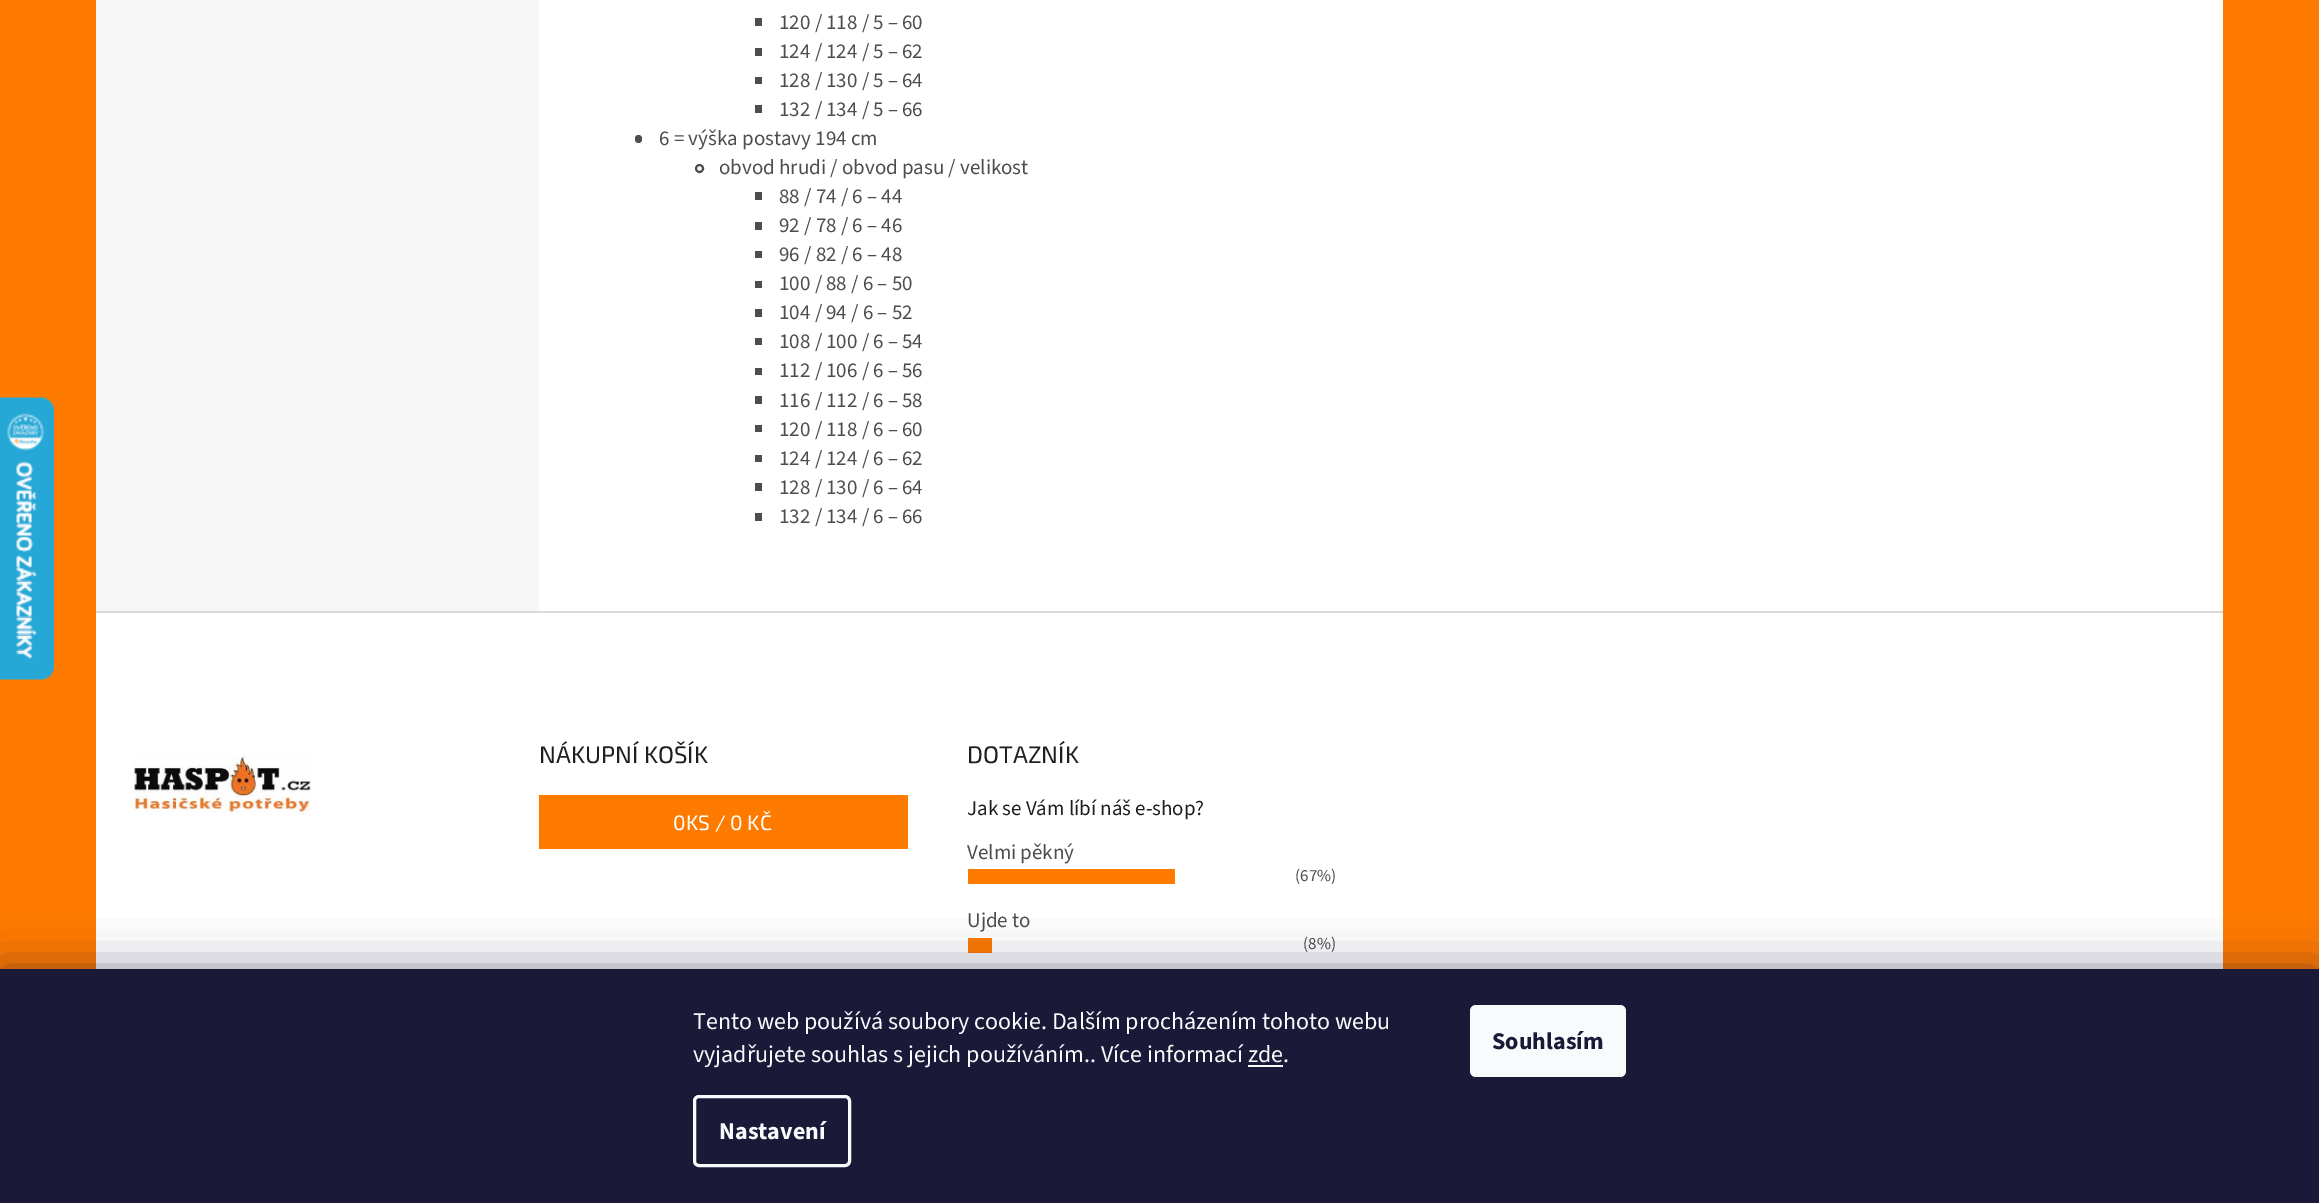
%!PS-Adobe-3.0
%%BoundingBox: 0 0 2319 1203
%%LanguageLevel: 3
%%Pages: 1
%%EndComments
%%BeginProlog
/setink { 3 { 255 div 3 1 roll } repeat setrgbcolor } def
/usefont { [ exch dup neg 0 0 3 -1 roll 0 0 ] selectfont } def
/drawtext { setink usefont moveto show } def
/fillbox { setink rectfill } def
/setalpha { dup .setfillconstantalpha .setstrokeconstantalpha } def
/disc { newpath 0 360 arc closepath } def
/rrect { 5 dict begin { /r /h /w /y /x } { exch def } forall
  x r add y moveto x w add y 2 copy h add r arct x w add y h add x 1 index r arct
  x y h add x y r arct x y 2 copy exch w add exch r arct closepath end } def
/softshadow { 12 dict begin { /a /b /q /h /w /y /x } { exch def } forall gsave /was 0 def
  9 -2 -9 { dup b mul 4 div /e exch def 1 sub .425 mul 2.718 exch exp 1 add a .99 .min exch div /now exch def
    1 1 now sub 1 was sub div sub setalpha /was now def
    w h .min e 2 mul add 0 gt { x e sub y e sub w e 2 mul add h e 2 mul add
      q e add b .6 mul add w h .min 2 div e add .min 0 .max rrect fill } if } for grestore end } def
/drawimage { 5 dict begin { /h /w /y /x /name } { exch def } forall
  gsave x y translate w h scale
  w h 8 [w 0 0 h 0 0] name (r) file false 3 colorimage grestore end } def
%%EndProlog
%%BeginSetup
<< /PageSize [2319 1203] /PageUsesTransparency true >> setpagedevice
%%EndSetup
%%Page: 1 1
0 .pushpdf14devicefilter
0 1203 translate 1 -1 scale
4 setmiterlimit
0 0 2319 1203 255 123 0 fillbox
(assets/img1.rgb) 0 397 54 283 drawimage
539 0 1684 611 255 255 255 fillbox
96 0 443 611 246 246 246 fillbox
755 18 7 8 77 77 77 fillbox
(120 / 118 / 5 – 60) 779 29 /SourceSans3-Regular 21 77 77 77 drawtext
755 48 7 8 77 77 77 fillbox
(124 / 124 / 5 – 62) 779 58 /SourceSans3-Regular 21 77 77 77 drawtext
755 77 7 7 77 77 77 fillbox
(128 / 130 / 5 – 64) 779 87 /SourceSans3-Regular 21 77 77 77 drawtext
755 105 7 8 77 77 77 fillbox
(132 / 134 / 5 – 66) 779 116 /SourceSans3-Regular 21 77 77 77 drawtext
635 135 7 8 3.5 rrect fill
(6 = výška postavy 194 cm) 659 145 /SourceSans3-Regular 21 77 77 77 drawtext
2 setlinewidth
699.5 168.5 3.5 disc stroke
(obvod hrudi / obvod pasu / velikost) 719 174 /SourceSans3-Regular 21 77 77 77 drawtext
755 192 7 8 77 77 77 fillbox
(88 / 74 / 6 – 44) 779 203 /SourceSans3-Regular 21 77 77 77 drawtext
755 222 7 8 77 77 77 fillbox
(92 / 78 / 6 – 46) 779 232 /SourceSans3-Regular 21 77 77 77 drawtext
755 251 7 7 77 77 77 fillbox
(96 / 82 / 6 – 48) 779 261 /SourceSans3-Regular 21 77 77 77 drawtext
755 281 7 7 77 77 77 fillbox
(100 / 88 / 6 – 50) 779 290 /SourceSans3-Regular 21 77 77 77 drawtext
755 309 7 8 77 77 77 fillbox
(104 / 94 / 6 – 52) 779 319 /SourceSans3-Regular 21 77 77 77 drawtext
755 338 7 7 77 77 77 fillbox
(108 / 100 / 6 – 54) 779 348 /SourceSans3-Regular 21 77 77 77 drawtext
755 368 7 7 77 77 77 fillbox
(112 / 106 / 6 – 56) 779 377 /SourceSans3-Regular 21 77 77 77 drawtext
755 396 7 8 77 77 77 fillbox
(116 / 112 / 6 – 58) 779 407 /SourceSans3-Regular 21 77 77 77 drawtext
755 425 7 7 77 77 77 fillbox
(120 / 118 / 6 – 60) 779 436 /SourceSans3-Regular 21 77 77 77 drawtext
755 455 7 7 77 77 77 fillbox
(124 / 124 / 6 – 62) 779 465 /SourceSans3-Regular 21 77 77 77 drawtext
755 483 7 8 77 77 77 fillbox
(128 / 130 / 6 – 64) 779 494 /SourceSans3-Regular 21 77 77 77 drawtext
755 513 7 8 77 77 77 fillbox
(132 / 134 / 6 – 66) 779 523 /SourceSans3-Regular 21 77 77 77 drawtext
96 613 2127 356 255 255 255 fillbox
(assets/img2.rgb) 133 754 178 61 drawimage
96 611 2127 2 218 218 218 fillbox
(NÁKUPNÍ KOŠÍK) 539 763 /Exo2-Regular 24 31 31 31 drawtext
539 795 369 54 255 123 0 fillbox
(0KS / 0 KČ) 673 830 /Exo2-Regular 21 255 255 255 drawtext
(DOTAZNÍK) 967 763 /Exo2-Regular 24 31 31 31 drawtext
(Jak se Vám líbí náš e-shop?) 967 815 /SourceSans3-Regular 21 31 31 31 drawtext
(Velmi pěkný) 967 859 /SourceSans3-Regular 21 77 77 77 drawtext
968 869 207 15 255 123 0 fillbox
(\(67%\)) 1295 881 /SourceSans3-Regular 17 77 77 77 drawtext
(Ujde to) 967 927 /SourceSans3-Regular 21 77 77 77 drawtext
968 938 24 15 255 123 0 fillbox
(\(8%\)) 1303 949 /SourceSans3-Regular 17 77 77 77 drawtext
27 25 57 setink
0 969 2319 234 0 22.5 0.5 softshadow
0 969 2319 234 26 25 55 fillbox
(Tento web používá soubory cookie. Dalším procházením tohoto webu) 693 1029 /SourceSans3-Regular 24 248 250 251 drawtext
(vyjadřujete souhlas s jejich používáním.. Více informací zde.) 693 1062 /SourceSans3-Regular 24 248 250 251 drawtext
1248 1065 35 2 248 250 251 fillbox
3 setlinewidth
694.5 1096.5 155 69 4.5 rrect stroke
(Nastavení) 719 1139 /SourceSans3-Bold 24 248 250 251 drawtext
1470 1005 156 72 6 rrect fill
(Souhlasím) 1492 1049 /SourceSans3-Bold 24 26 25 55 drawtext
.poppdf14devicefilter showpage
%%EOF
